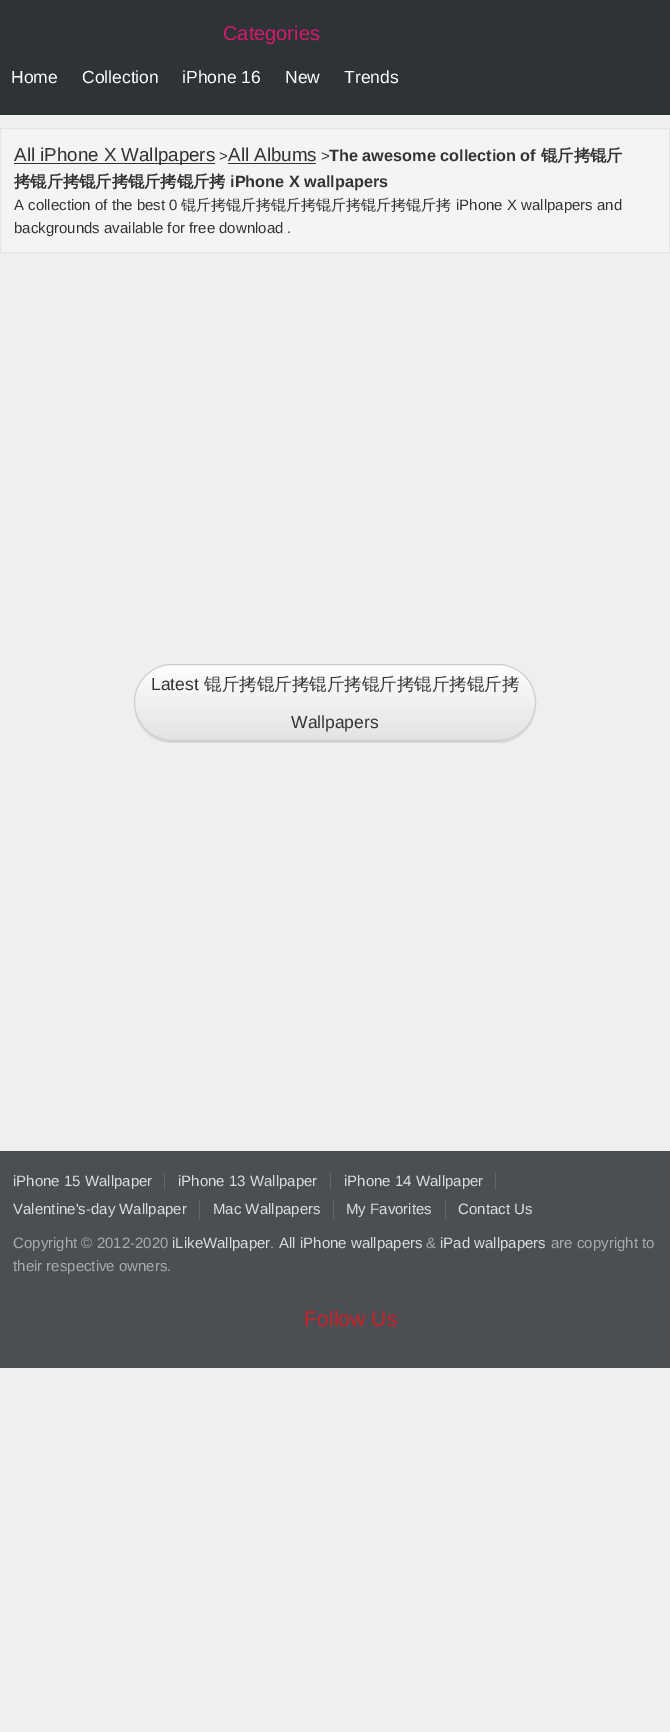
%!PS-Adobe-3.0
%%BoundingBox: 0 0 670 1732
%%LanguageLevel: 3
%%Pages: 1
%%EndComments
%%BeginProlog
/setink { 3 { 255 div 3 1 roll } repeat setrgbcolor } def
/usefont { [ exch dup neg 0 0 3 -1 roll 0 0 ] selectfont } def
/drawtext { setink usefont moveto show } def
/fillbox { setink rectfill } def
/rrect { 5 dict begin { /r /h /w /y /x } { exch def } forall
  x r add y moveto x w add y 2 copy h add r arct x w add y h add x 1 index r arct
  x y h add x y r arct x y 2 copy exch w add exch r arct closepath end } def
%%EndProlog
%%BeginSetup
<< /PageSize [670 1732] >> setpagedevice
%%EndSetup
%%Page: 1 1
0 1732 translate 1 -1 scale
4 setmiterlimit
0 0 670 1732 239 239 239 fillbox
0 0 670 115 46 51 54 fillbox
(Categories) 223 40 /LiberationSans-Regular 20 212 26 110 drawtext
(Home) 11 83 /LiberationSans-Regular 17.5 255 255 255 drawtext
(Collection) 82 83 /LiberationSans-Regular 17.5 255 255 255 drawtext
(iPhone 16) 182 83 /LiberationSans-Regular 17.5 255 255 255 drawtext
(New) 285 83 /LiberationSans-Regular 17.5 255 255 255 drawtext
(Trends) 344 83 /LiberationSans-Regular 17.5 255 255 255 drawtext
244 244 244 setink
0.5 128.5 moveto 669.5 128.5 lineto 669.5 252.5 lineto 0.5 252.5 lineto closepath gsave fill grestore
229 229 229 setink
stroke
14 163 201 1 51 51 51 fillbox
(All iPhone X Wallpapers) 14 161 /LiberationSans-Regular 18.75 51 51 51 drawtext
(>) 219 161 /LiberationSans-Regular 15 51 51 51 drawtext
228 163 88 1 51 51 51 fillbox
(All Albums) 228 161 /LiberationSans-Regular 18.75 51 51 51 drawtext
(>) 321 161 /LiberationSans-Regular 15 51 51 51 drawtext
(The awesome collection of) 329 161 /LiberationSans-Bold 16.25 51 51 51 drawtext
(锟斤拷锟斤) 541 161 /WenQuanYiZenHei-Bold 16.25 51 51 51 drawtext
(拷锟斤拷锟斤拷锟斤拷锟斤拷) 14 187 /WenQuanYiZenHei-Bold 16.25 51 51 51 drawtext
(iPhone X wallpapers) 230 187 /LiberationSans-Bold 16.25 51 51 51 drawtext
(A collection of the best 0) 14 210 /LiberationSans-Regular 15 51 51 51 drawtext
(锟斤拷锟斤拷锟斤拷锟斤拷锟斤拷锟斤拷) 181 210 /WenQuanYiZenHei-Medium 15 51 51 51 drawtext
(iPhone X wallpapers and) 456 210 /LiberationSans-Regular 15 51 51 51 drawtext
(backgrounds available for free download .) 14 233 /LiberationSans-Regular 15 51 51 51 drawtext
216 216 216 setink
135 712 moveto 138 729 153 743 172 743 curveto 498 743 lineto 517 743 532 729 535 712 curveto 532 729 517 741 499 741 curveto 171 741 lineto 153 741 138 729 135 712 curveto closepath fill
gsave
134 664 402 77 38 rrect clip newpath
gsave 134 665 moveto 536 665 lineto 536 740 lineto 134 740 lineto closepath clip newpath
<< /ShadingType 2 /ColorSpace /DeviceRGB /Coords [335 665 335 740] /Extend [true true] /Function << /FunctionType 2 /Domain [0 1] /C0 [0.996 0.996 0.996] /C1 [0.89 0.89 0.89] /N 1 >> >> shfill grestore
grestore
204 204 204 setink
134.5 664.5 401 76 37.5 rrect stroke
(Latest) 151 690 /LiberationSans-Regular 17.5 51 51 51 drawtext
(锟斤拷锟斤拷锟斤拷锟斤拷锟斤拷锟斤拷) 204 690 /WenQuanYiZenHei-Medium 17.5 51 51 51 drawtext
(Wallpapers) 291 728 /LiberationSans-Regular 17.5 51 51 51 drawtext
0 1151 670 217 75 79 83 fillbox
164 1173 1 17 102 102 102 fillbox
(iPhone 15 Wallpaper) 13 1186 /LiberationSans-Regular 15 221 221 221 drawtext
330 1173 1 17 102 102 102 fillbox
(iPhone 13 Wallpaper) 178 1186 /LiberationSans-Regular 15 221 221 221 drawtext
495 1173 1 17 102 102 102 fillbox
(iPhone 14 Wallpaper) 344 1186 /LiberationSans-Regular 15 221 221 221 drawtext
199 1200 1 19 102 102 102 fillbox
(Valentine's-day Wallpaper) 13 1214 /LiberationSans-Regular 15 221 221 221 drawtext
333 1200 1 19 102 102 102 fillbox
(Mac Wallpapers) 213 1214 /LiberationSans-Regular 15 221 221 221 drawtext
445 1200 1 19 102 102 102 fillbox
(My Favorites) 346 1214 /LiberationSans-Regular 15 221 221 221 drawtext
(Contact Us) 458 1214 /LiberationSans-Regular 15 221 221 221 drawtext
(Copyright © 2012-2020) 13 1248 /LiberationSans-Regular 15 170 170 170 drawtext
(iLikeWallpaper) 172 1248 /LiberationSans-Regular 15 221 221 221 drawtext
(.) 270 1248 /LiberationSans-Regular 15 170 170 170 drawtext
(All iPhone wallpapers) 279 1248 /LiberationSans-Regular 15 221 221 221 drawtext
(&) 426 1248 /LiberationSans-Regular 15 170 170 170 drawtext
(iPad wallpapers) 440 1248 /LiberationSans-Regular 15 221 221 221 drawtext
(are copyright to) 551 1248 /LiberationSans-Regular 15 170 170 170 drawtext
(their respective owners.) 13 1271 /LiberationSans-Regular 15 170 170 170 drawtext
(Follow Us) 304 1326 /LiberationSans-Regular 21.25 203 32 39 drawtext
showpage
%%EOF
